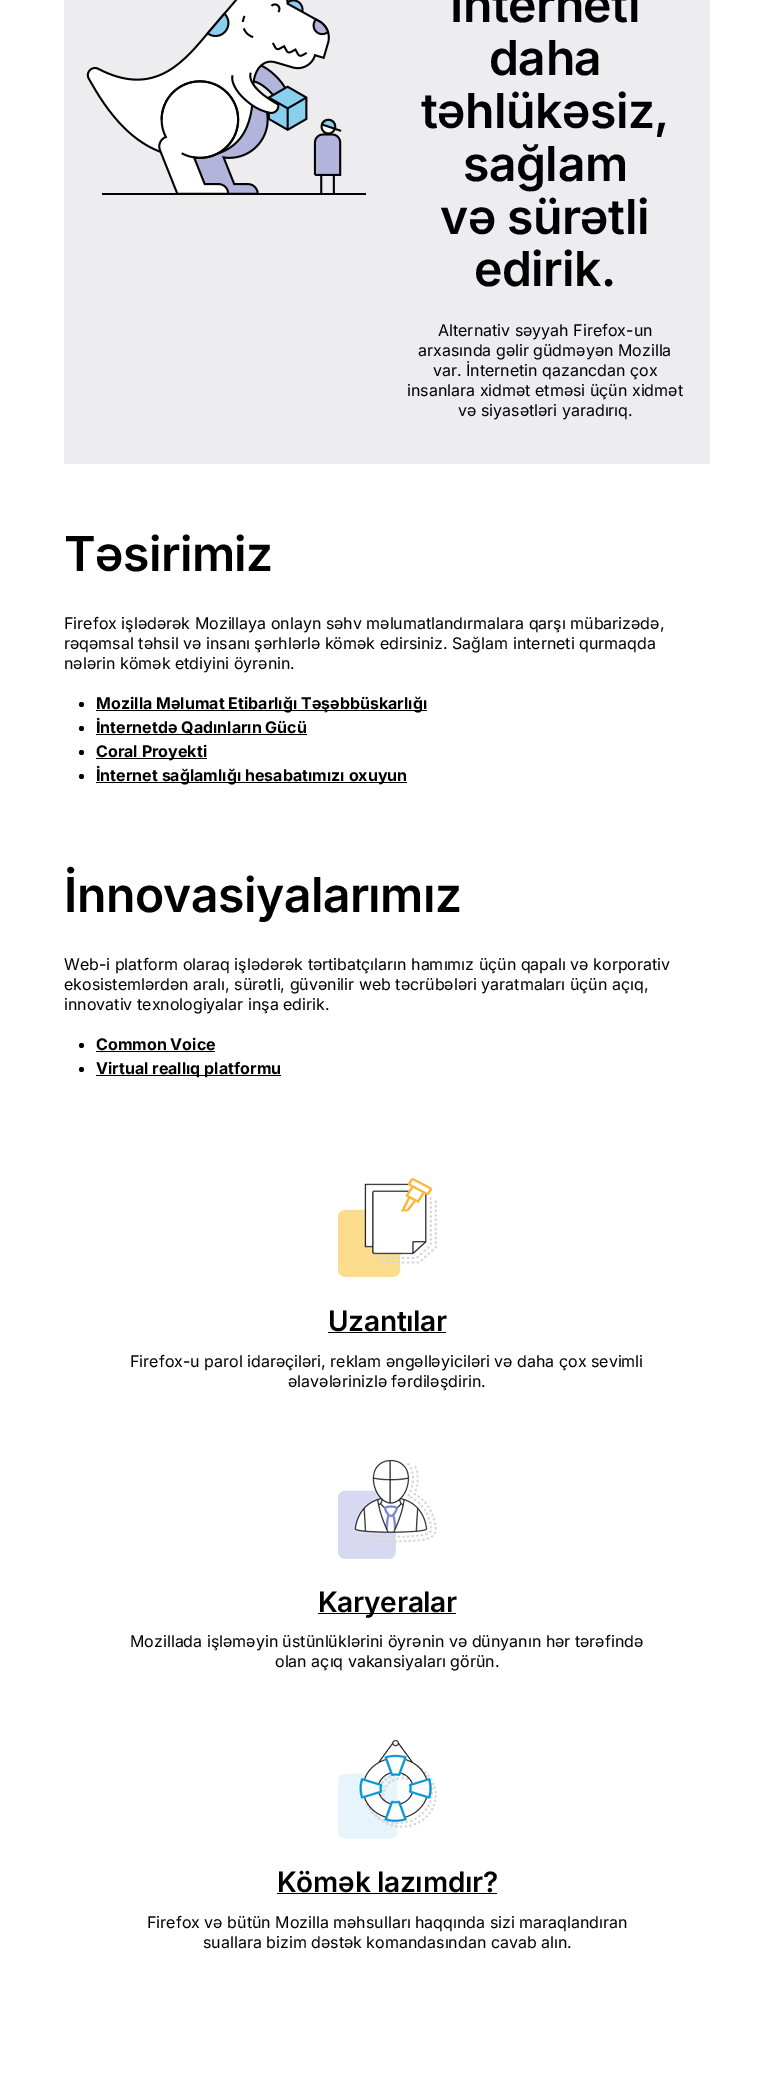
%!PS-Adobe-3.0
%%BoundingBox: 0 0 774 2082
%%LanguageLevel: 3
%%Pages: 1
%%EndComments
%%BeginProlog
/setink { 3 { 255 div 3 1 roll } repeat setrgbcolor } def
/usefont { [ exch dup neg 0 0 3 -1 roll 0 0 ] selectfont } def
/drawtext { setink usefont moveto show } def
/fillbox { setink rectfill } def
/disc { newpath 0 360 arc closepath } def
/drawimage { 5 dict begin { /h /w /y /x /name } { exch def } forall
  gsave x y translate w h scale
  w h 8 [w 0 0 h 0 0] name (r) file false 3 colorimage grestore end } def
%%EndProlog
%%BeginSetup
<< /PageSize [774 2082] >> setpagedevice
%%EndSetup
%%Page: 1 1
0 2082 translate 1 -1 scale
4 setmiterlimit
0 0 774 2082 255 255 255 fillbox
64 0 646 464 237 237 240 fillbox
(assets/img1.rgb) 86 0 280 195 drawimage
/Inter-SemiBold 48 usefont
0 0 0 setink
450 22 moveto -0.5 0 (İnterneti) ashow
489 75 moveto -0.5 0 (daha) ashow
421 128 moveto -0.5 0 (təhlükəsiz,) ashow
463 181 moveto -0.5 0 (sağlam) ashow
440 234 moveto -0.5 0 (və sürətli) ashow
474 286 moveto -0.5 0 (edirik.) ashow
(Alternativ səyyah Firefox-un) 438 336 /Inter-Regular 16 0 0 0 drawtext
(arxasında gəlir güdməyən Mozilla) 418 356 /Inter-Regular 16 0 0 0 drawtext
(var. İnternetin qazancdan çox) 433 376 /Inter-Regular 16 0 0 0 drawtext
(insanlara xidmət etməsi üçün xidmət) 407 396 /Inter-Regular 16 0 0 0 drawtext
(və siyasətləri yaradırıq.) 458 416 /Inter-Regular 16 0 0 0 drawtext
/Inter-SemiBold 48 usefont
64 571 moveto -0.5 0 (Təsirimiz) ashow
(Firefox işlədərək Mozillaya onlayn səhv məlumatlandırmalara qarşı mübarizədə,) 64 629 /Inter-Regular 16 0 0 0 drawtext
(rəqəmsal təhsil və insanı şərhlərlə kömək edirsiniz. Sağlam interneti qurmaqda) 64 649 /Inter-Regular 16 0 0 0 drawtext
(nələrin kömək etdiyini öyrənin.) 64 669 /Inter-Regular 16 0 0 0 drawtext
81.5 704.5 2.5 disc fill
96 710 331 1 0 0 0 fillbox
(Mozilla Məlumat Etibarlığı Təşəbbüskarlığı) 96 709 /Inter-Bold 16 0 0 0 drawtext
81.5 728.5 2.5 disc fill
(İnternetdə Qadınların Gücü) 96 733 /Inter-Bold 16 0 0 0 drawtext
96 734 211 1 0 0 0 fillbox
81.5 752.5 2.5 disc fill
96 758 111 1 0 0 0 fillbox
(Coral Proyekti) 96 757 /Inter-Bold 16 0 0 0 drawtext
81.5 776.5 2.5 disc fill
96 782 311 1 0 0 0 fillbox
(İnternet sağlamlığı hesabatımızı oxuyun) 96 781 /Inter-Bold 16 0 0 0 drawtext
/Inter-SemiBold 48 usefont
64 912 moveto -0.5 0 (İnnovasiyalarımız) ashow
(Web-i platform olaraq işlədərək tərtibatçıların hamımız üçün qapalı və korporativ) 64 970 /Inter-Regular 16 0 0 0 drawtext
(ekosistemlərdən aralı, sürətli, güvənilir web təcrübələri yaratmaları üçün açıq,) 64 990 /Inter-Regular 16 0 0 0 drawtext
(innovativ texnologiyalar inşa edirik.) 64 1010 /Inter-Regular 16 0 0 0 drawtext
81.5 1045.5 2.5 disc fill
(Common Voice) 96 1050 /Inter-Bold 16 0 0 0 drawtext
96 1051 119 1 0 0 0 fillbox
81.5 1069.5 2.5 disc fill
96 1075 185 1 0 0 0 fillbox
(Virtual reallıq platformu) 96 1074 /Inter-Bold 16 0 0 0 drawtext
(assets/img2.rgb) 338 1178 99 99 drawimage
/Inter-SemiBold 28 usefont
328 1331 moveto -0.25 0 (Uzantılar) ashow
328 1332 118 1 0 0 0 fillbox
(Firefox-u parol idarəçiləri, reklam əngəlləyiciləri və daha çox sevimli) 130 1367 /Inter-Regular 16 0 0 0 drawtext
(əlavələrinizlə fərdiləşdirin.) 288 1387 /Inter-Regular 16 0 0 0 drawtext
(assets/img3.rgb) 338 1460 99 99 drawimage
318 1613 138 1 0 0 0 fillbox
/Inter-SemiBold 28 usefont
318 1612 moveto -0.25 0 (Karyeralar) ashow
(Mozillada işləməyin üstünlüklərini öyrənin və dünyanın hər tərəfində) 130 1647 /Inter-Regular 16 0 0 0 drawtext
(olan açıq vakansiyaları görün.) 275 1667 /Inter-Regular 16 0 0 0 drawtext
(assets/img4.rgb) 338 1740 99 99 drawimage
/Inter-SemiBold 28 usefont
277 1892 moveto -0.25 0 (Kömək lazımdır?) ashow
277 1893 220 1 0 0 0 fillbox
(Firefox və bütün Mozilla məhsulları haqqında sizi maraqlandıran) 147 1928 /Inter-Regular 16 0 0 0 drawtext
(suallara bizim dəstək komandasından cavab alın.) 203 1948 /Inter-Regular 16 0 0 0 drawtext
showpage
%%EOF
